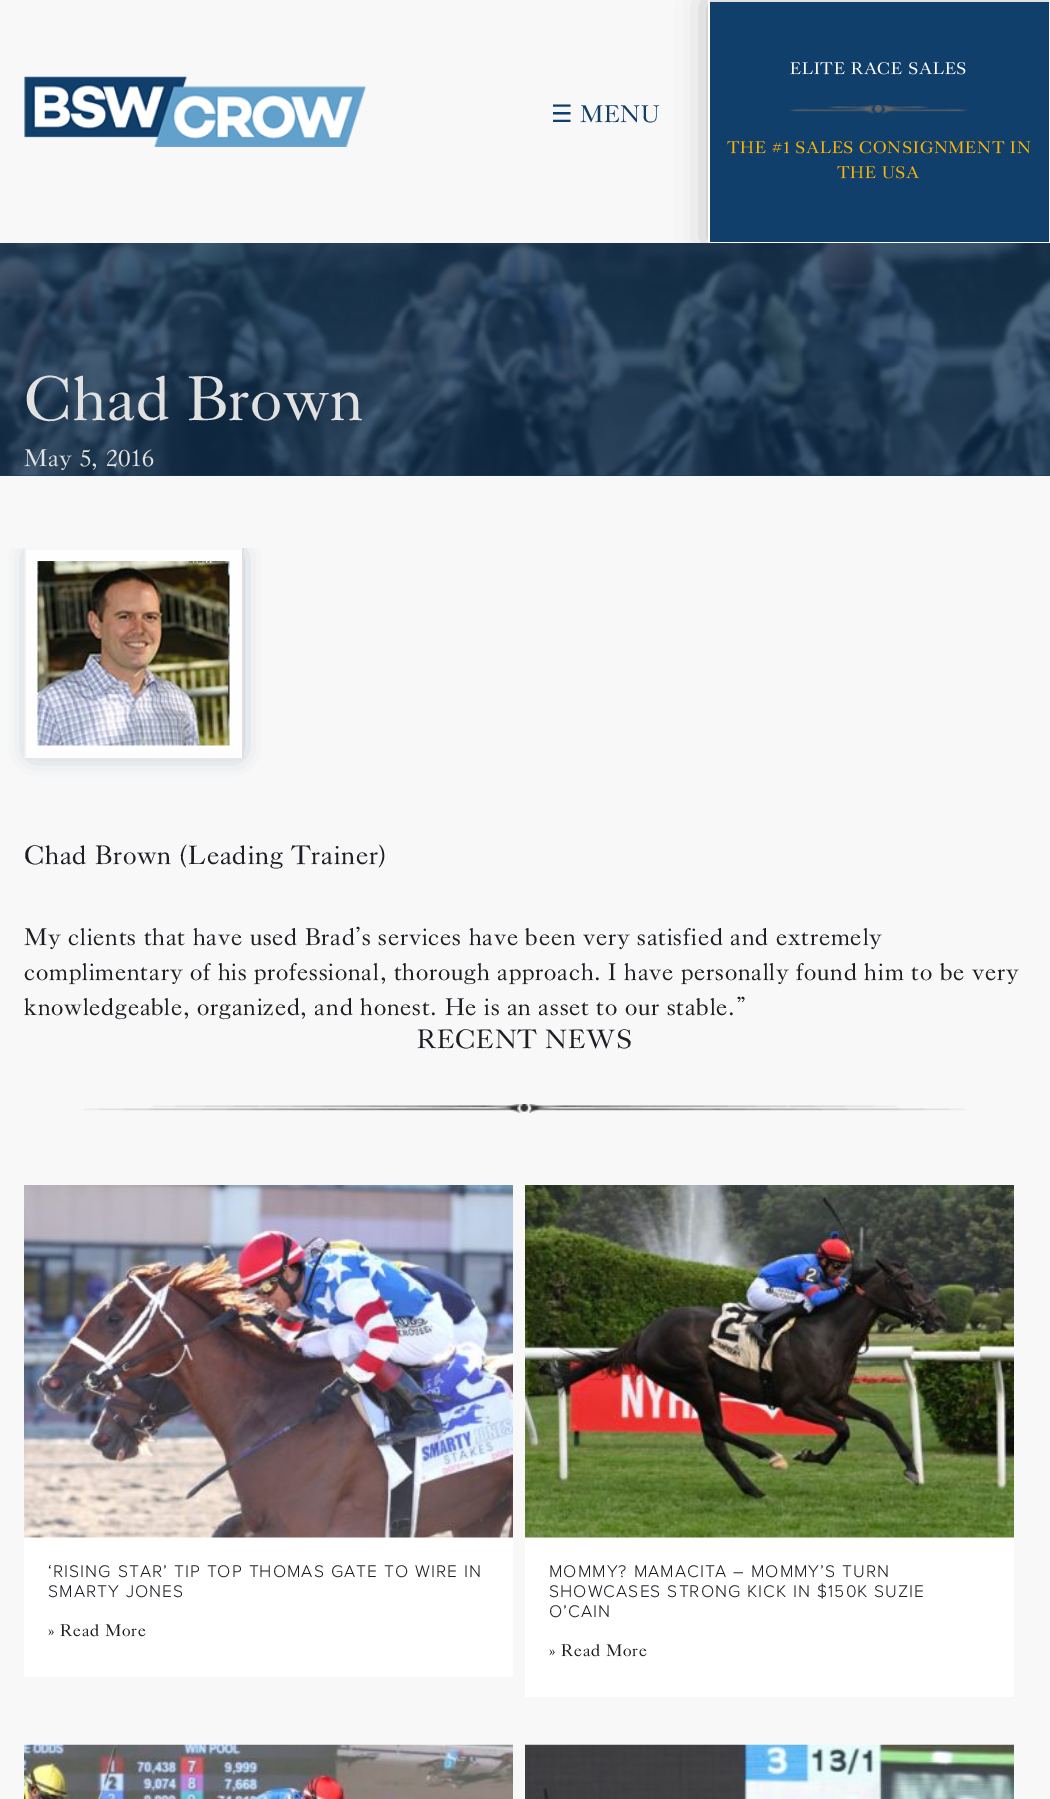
%!PS-Adobe-3.0
%%BoundingBox: 0 0 1050 1799
%%LanguageLevel: 3
%%Pages: 1
%%EndComments
%%BeginProlog
/setink { 3 { 255 div 3 1 roll } repeat setrgbcolor } def
/usefont { [ exch dup neg 0 0 3 -1 roll 0 0 ] selectfont } def
/fillbox { setink rectfill } def
/setalpha { dup .setfillconstantalpha .setstrokeconstantalpha } def
/rrect { 5 dict begin { /r /h /w /y /x } { exch def } forall
  x r add y moveto x w add y 2 copy h add r arct x w add y h add x 1 index r arct
  x y h add x y r arct x y 2 copy exch w add exch r arct closepath end } def
/softshadow { 12 dict begin { /a /b /q /h /w /y /x } { exch def } forall gsave /was 0 def
  9 -2 -9 { dup b mul 4 div /e exch def 1 sub .425 mul 2.718 exch exp 1 add a .99 .min exch div /now exch def
    1 1 now sub 1 was sub div sub setalpha /was now def
    w h .min e 2 mul add 0 gt { x e sub y e sub w e 2 mul add h e 2 mul add
      q e add b .6 mul add w h .min 2 div e add .min 0 .max rrect fill } if } for grestore end } def
/drawimage { 5 dict begin { /h /w /y /x /name } { exch def } forall
  gsave x y translate w h scale
  w h 8 [w 0 0 h 0 0] name (r) file false 3 colorimage grestore end } def
%%EndProlog
%%BeginSetup
<< /PageSize [1050 1799] /PageUsesTransparency true >> setpagedevice
%%EndSetup
%%Page: 1 1
0 .pushpdf14devicefilter
0 1799 translate 1 -1 scale
4 setmiterlimit
0 0 1050 1799 248 248 248 fillbox
(assets/img1.rgb) 24 76 342 71 drawimage
/DejaVuSans-Regular 24 usefont
16 63 107 setink
551 122 moveto 0.75 0 (☰) ashow
/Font-Regular 24 usefont
580 122 moveto 0.75 0 (MENU) ashow
0 0 0 setink
710 2 339 240 0 16 0.3 softshadow
710 2 339 240 16 63 107 fillbox
708 0 342 2 225 225 225 fillbox
1049 0 1 243 255 255 255 fillbox
708 242 342 1 255 255 255 fillbox
708 0 2 243 255 255 255 fillbox
/Font-Regular 16.8 usefont
790 74 moveto 0.75 0 (ELITE RACE SALES) ashow
(assets/img2.rgb) 789 105 179 9 drawimage
255 179 2 setink
727 153 moveto 0.75 0 (THE #1 SALES CONSIGNMENT IN) ashow
837 178 moveto 0.75 0 (THE USA) ashow
0 475 1050 1 16 63 107 fillbox
(assets/img3.rgb) 0 243 1050 233 drawimage
/Font-Regular 62.5 usefont
225 225 225 setink
24 420 moveto 0.75 0 (Chad Brown) ashow
/Font-Regular 24 usefont
24 466 moveto 0.75 0 (May 5, 2016) ashow
gsave
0 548 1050 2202 rectclip
11 52 90 setink
33 555 204 197 0 11 0.47 softshadow
grestore
24 548 219 2 247 247 247 fillbox
242 548 2 211 224 224 224 fillbox
24 758 219 2 230 230 230 fillbox
24 548 2 211 241 241 241 fillbox
26 550 216 208 254 254 254 fillbox
(assets/img4.rgb) 37 561 193 185 drawimage
/Font-Regular 26.4 usefont
30 30 36 setink
24 864 moveto 0.75 0 (Chad Brown \(Leading Trainer\)) ashow
/Font-Regular 24 usefont
24 945 moveto 0.75 0 (My clients that have used Brad’s services have been very satisfied and extremely) ashow
24 980 moveto 0.75 0 (complimentary of his professional, thorough approach. I have personally found him to be very) ashow
24 1015 moveto 0.75 0 (knowledgeable, organized, and honest. He is an asset to our stable.”) ashow
/Font-Regular 26.4 usefont
417 1048 moveto 0.75 0 (RECENT NEWS) ashow
(assets/img5.rgb) 84 1104 881 9 drawimage
24 1537 489 140 255 255 255 fillbox
(assets/img6.rgb) 24 1185 489 353 drawimage
/ProximaNova-Bold 16.8 usefont
30 30 36 setink
48 1577 moveto 1.5 0 (‘RISING STAR’ TIP TOP THOMAS GATE TO WIRE IN) ashow
48 1597 moveto 1.5 0 (SMARTY JONES) ashow
/Font-Regular 16.8 usefont
48 1636 moveto 0.75 0 (» Read More) ashow
525 1537 489 160 255 255 255 fillbox
(assets/img7.rgb) 525 1185 489 353 drawimage
/ProximaNova-Bold 16.8 usefont
30 30 36 setink
549 1577 moveto 1.5 0 (MOMMY? MAMACITA – MOMMY’S TURN) ashow
549 1597 moveto 1.5 0 (SHOWCASES STRONG KICK IN $150K SUZIE) ashow
549 1617 moveto 1.5 0 (O’CAIN) ashow
/Font-Regular 16.8 usefont
549 1656 moveto 0.75 0 (» Read More) ashow
(assets/img8.rgb) 24 1744 489 55 drawimage
(assets/img9.rgb) 525 1744 489 55 drawimage
.poppdf14devicefilter showpage
%%EOF
